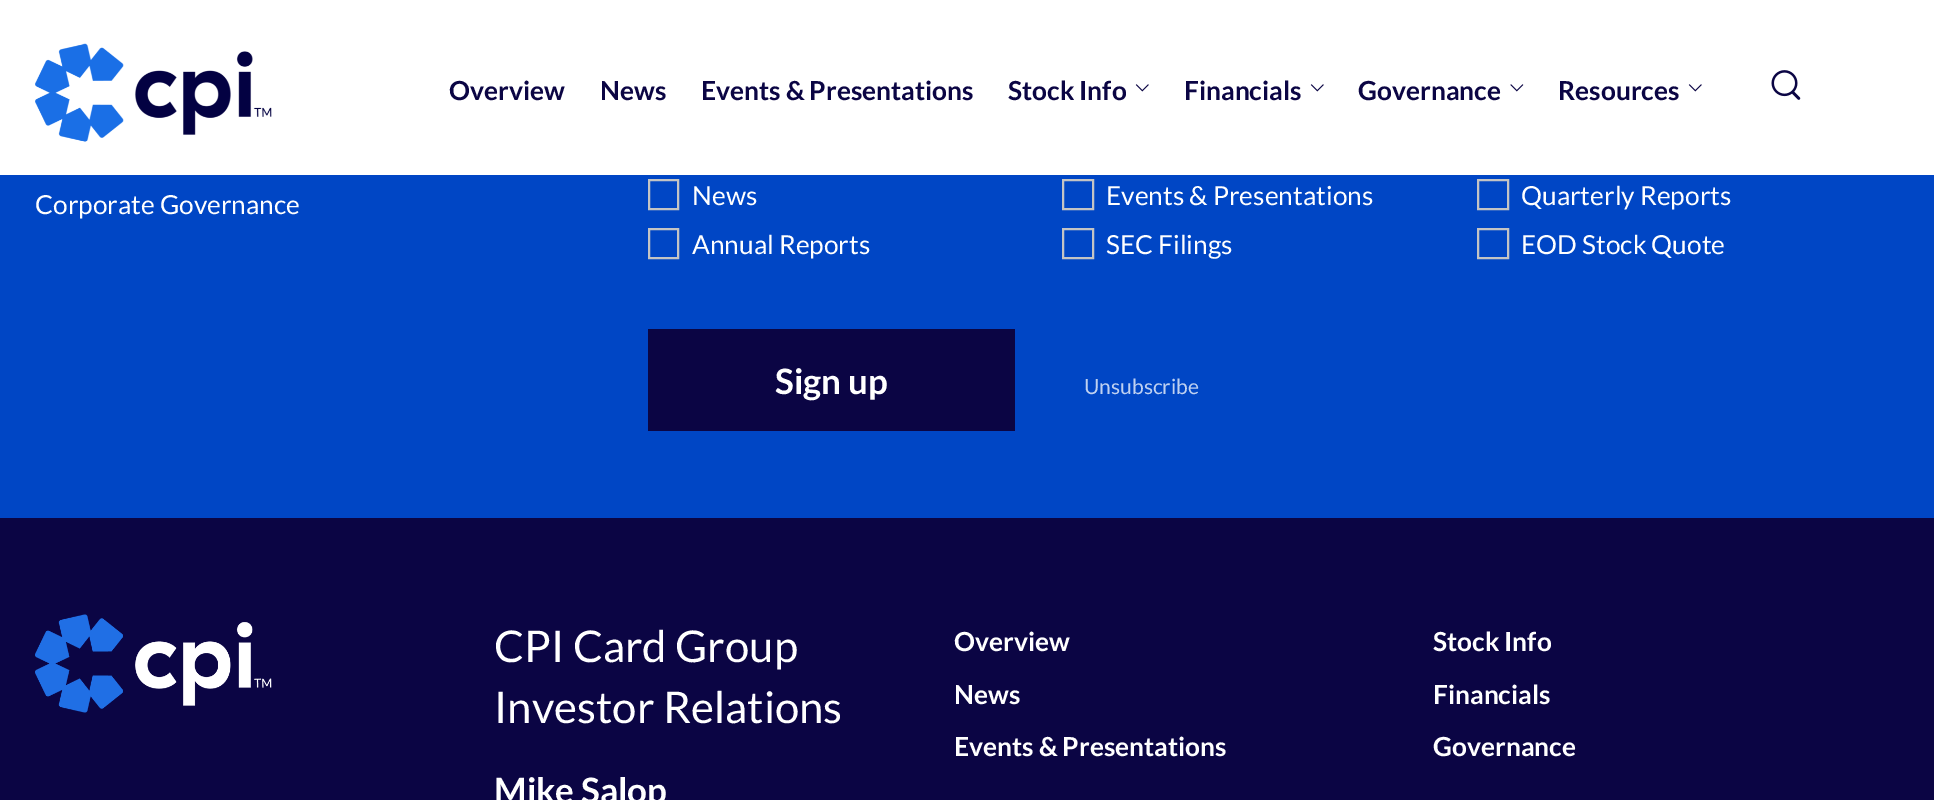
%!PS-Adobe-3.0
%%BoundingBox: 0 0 1934 800
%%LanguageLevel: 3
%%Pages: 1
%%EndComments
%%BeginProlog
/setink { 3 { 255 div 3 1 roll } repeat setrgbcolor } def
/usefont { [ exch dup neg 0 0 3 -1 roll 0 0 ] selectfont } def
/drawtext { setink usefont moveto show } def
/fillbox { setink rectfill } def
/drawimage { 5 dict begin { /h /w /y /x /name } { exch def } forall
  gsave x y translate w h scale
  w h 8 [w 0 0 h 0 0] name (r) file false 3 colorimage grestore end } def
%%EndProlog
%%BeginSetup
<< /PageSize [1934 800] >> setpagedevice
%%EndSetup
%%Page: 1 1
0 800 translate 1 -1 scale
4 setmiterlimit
0 0 1934 800 0 70 197 fillbox
0 0 1934 175 255 255 255 fillbox
(assets/img1.rgb) 35 43 237 99 drawimage
(Overview) 449 100 /Lato-Bold 26.25 11 5 68 drawtext
(News) 600 100 /Lato-Bold 26.25 11 5 68 drawtext
(Events & Presentations) 701 100 /Lato-Bold 26.25 11 5 68 drawtext
(Stock Info) 1008 100 /Lato-Bold 26.25 11 5 68 drawtext
(assets/img2.rgb) 1135 84 14 8 drawimage
(Financials) 1184 100 /Lato-Bold 26.25 11 5 68 drawtext
(assets/img2.rgb) 1310 84 14 8 drawimage
(Governance) 1358 100 /Lato-Bold 26.25 11 5 68 drawtext
(assets/img3.rgb) 1510 84 14 8 drawimage
(Resources) 1558 100 /Lato-Bold 26.25 11 5 68 drawtext
(assets/img2.rgb) 1688 84 14 8 drawimage
(assets/img4.rgb) 1771 70 30 30 drawimage
(Corporate Governance) 35 214 /Lato-Regular 26.25 255 255 255 drawtext
196 196 196 setink
2 setlinewidth
649 180 29 29 rectstroke
(News) 692 205 /Lato-Regular 26.25 255 255 255 drawtext
196 196 196 setink
1063 180 30 29 rectstroke
(Events & Presentations) 1106 205 /Lato-Regular 26.25 255 255 255 drawtext
196 196 196 setink
1478 180 30 29 rectstroke
(Quarterly Reports) 1521 205 /Lato-Regular 26.25 255 255 255 drawtext
196 196 196 setink
649 229 29 29 rectstroke
(Annual Reports) 692 254 /Lato-Regular 26.25 255 255 255 drawtext
196 196 196 setink
1063 229 30 29 rectstroke
(SEC Filings) 1106 254 /Lato-Regular 26.25 255 255 255 drawtext
196 196 196 setink
1478 229 30 29 rectstroke
(EOD Stock Quote) 1521 254 /Lato-Regular 26.25 255 255 255 drawtext
648 329 367 102 11 5 68 fillbox
(Sign up) 775 394 /Lato-Bold 35 255 255 255 drawtext
(Unsubscribe) 1084 394 /Lato-Regular 21 191 209 241 drawtext
0 518 1934 282 11 5 68 fillbox
(assets/img5.rgb) 35 614 237 99 drawimage
(CPI Card Group) 494 662 /Lato-Regular 43.75 255 255 255 drawtext
(Investor Relations) 494 723 /Lato-Regular 43.75 255 255 255 drawtext
(Mike Salop) 494 803 /Lato-Bold 35 255 255 255 drawtext
(Overview) 954 651 /Lato-Bold 26.25 255 255 255 drawtext
(Stock Info) 1433 651 /Lato-Bold 26.25 255 255 255 drawtext
(News) 954 704 /Lato-Bold 26.25 255 255 255 drawtext
(Financials) 1433 704 /Lato-Bold 26.25 255 255 255 drawtext
(Events & Presentations) 954 756 /Lato-Bold 26.25 255 255 255 drawtext
(Governance) 1433 756 /Lato-Bold 26.25 255 255 255 drawtext
showpage
%%EOF
